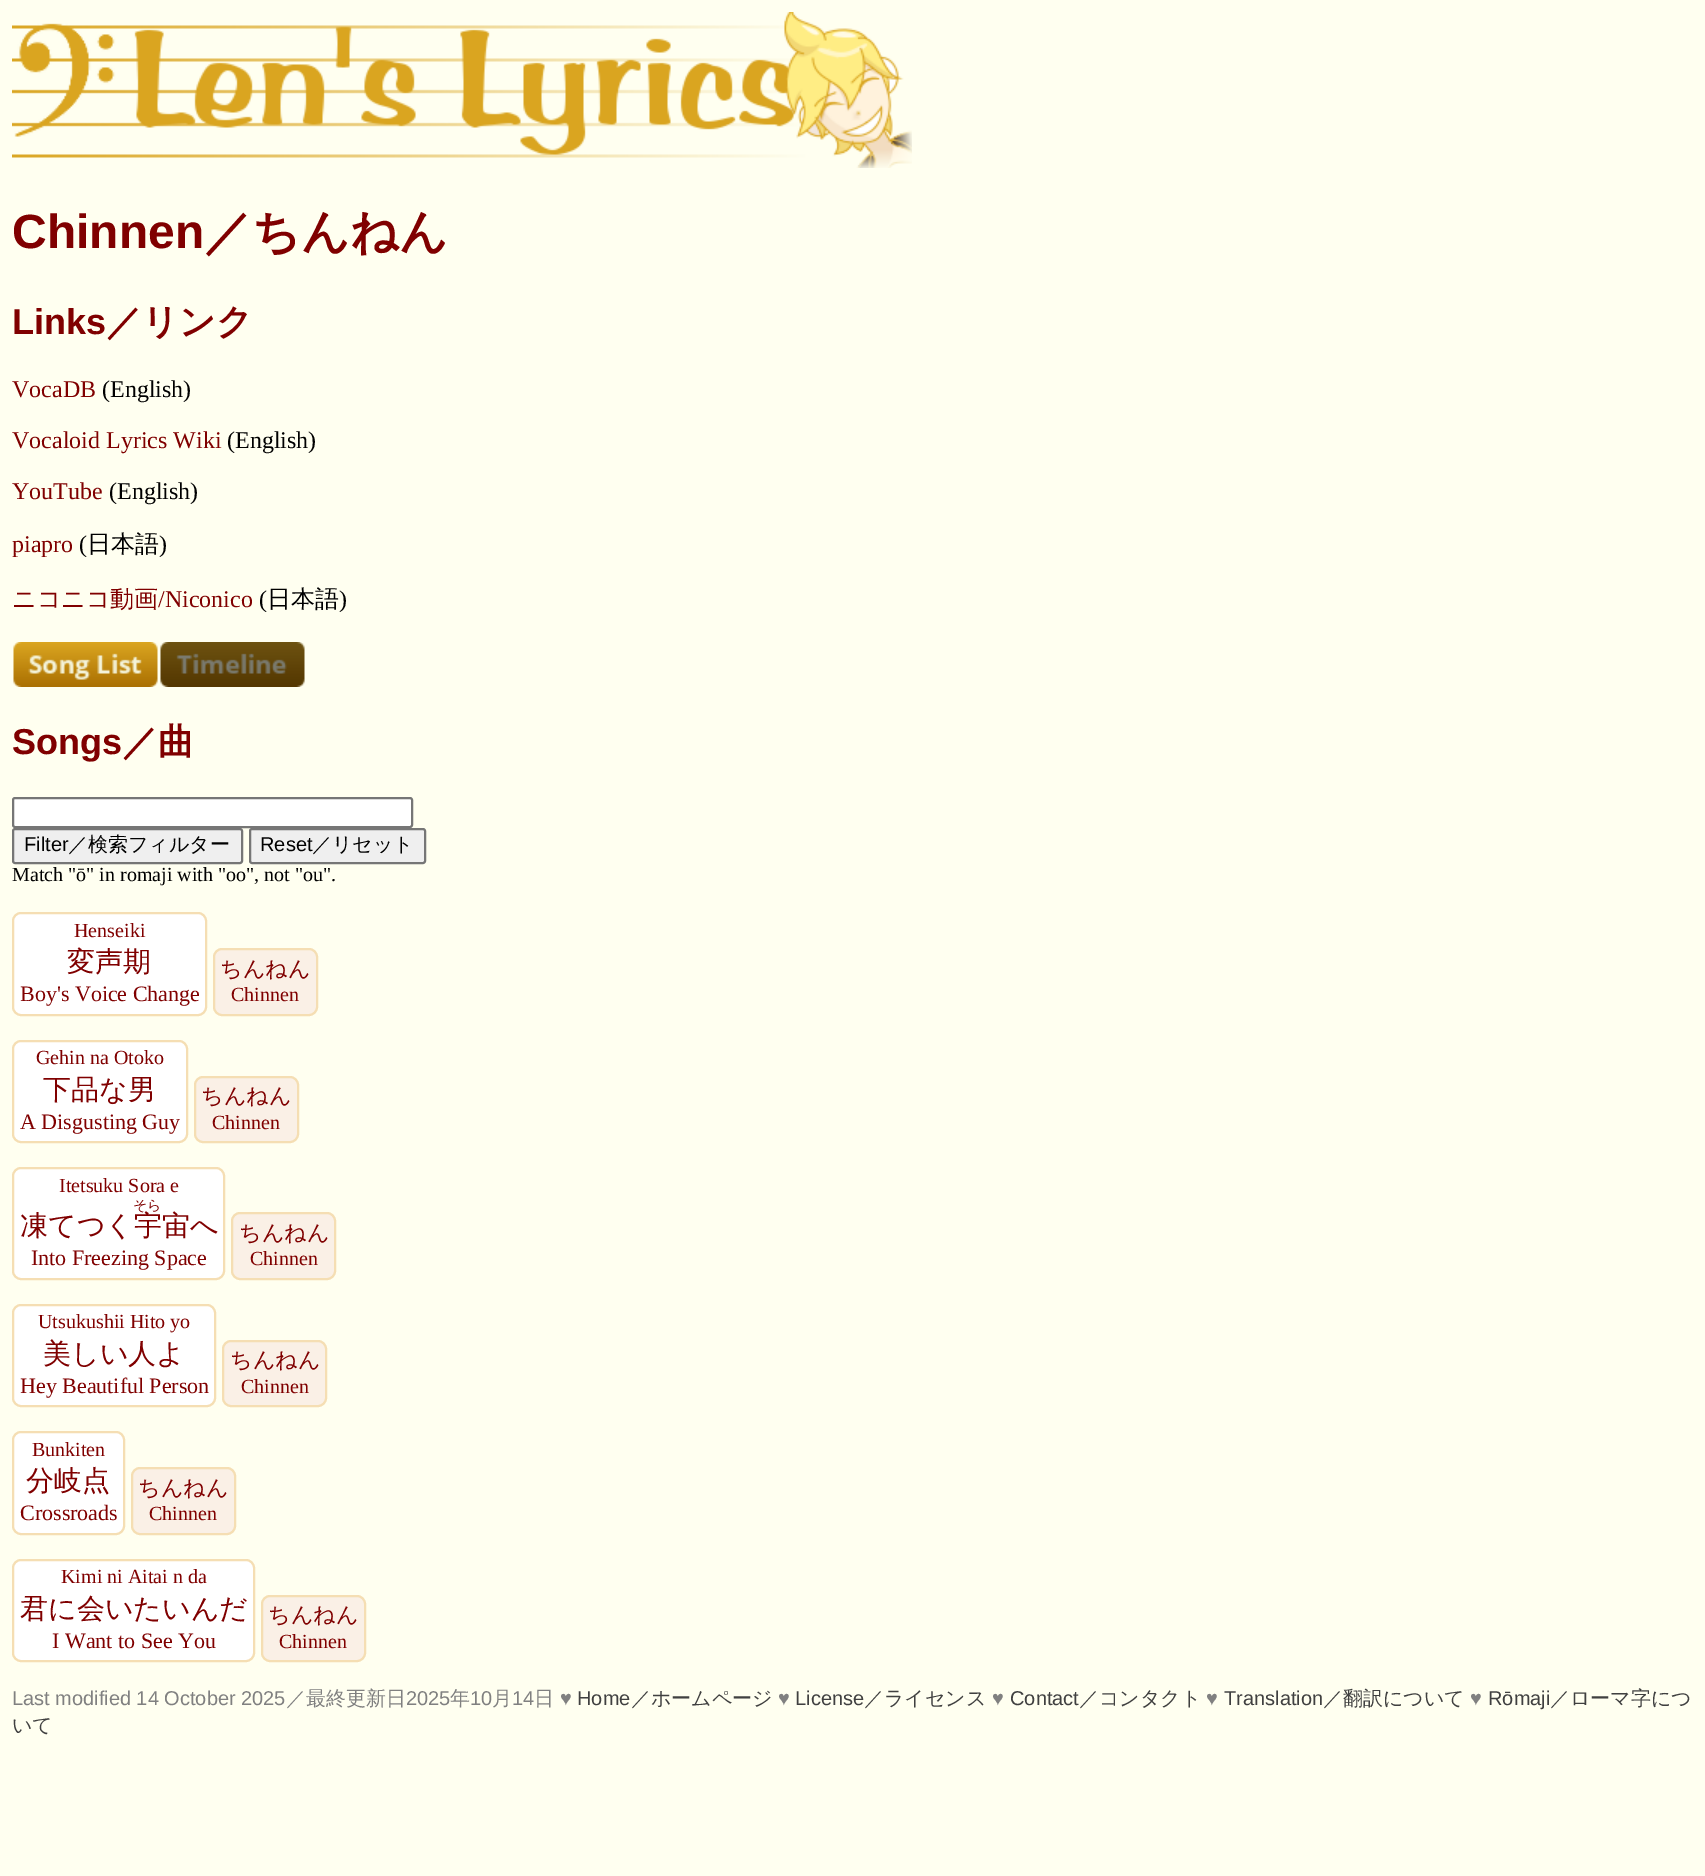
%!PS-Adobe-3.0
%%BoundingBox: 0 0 1705 1876
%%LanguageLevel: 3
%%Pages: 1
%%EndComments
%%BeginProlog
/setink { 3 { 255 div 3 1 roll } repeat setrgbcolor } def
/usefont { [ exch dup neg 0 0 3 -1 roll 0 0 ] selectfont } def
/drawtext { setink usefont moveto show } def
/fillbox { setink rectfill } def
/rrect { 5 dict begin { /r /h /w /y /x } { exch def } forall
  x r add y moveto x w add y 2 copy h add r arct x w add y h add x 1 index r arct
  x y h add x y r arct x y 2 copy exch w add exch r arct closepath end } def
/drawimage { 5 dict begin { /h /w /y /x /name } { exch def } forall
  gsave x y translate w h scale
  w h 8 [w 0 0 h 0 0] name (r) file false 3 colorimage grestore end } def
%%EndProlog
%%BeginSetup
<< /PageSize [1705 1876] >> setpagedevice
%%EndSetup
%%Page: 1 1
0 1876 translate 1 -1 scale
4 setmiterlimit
0 0 1705 1876 255 255 240 fillbox
(assets/img1.rgb) 12 12 900 156 drawimage
(Chinnen) 12 248 /LiberationSans-Bold 48 128 0 0 drawtext
(／ちんねん) 204 248 /WenQuanYiZenHei-Bold 48 128 0 0 drawtext
(Links) 12 334 /LiberationSans-Bold 36 128 0 0 drawtext
(／リンク) 106 334 /WenQuanYiZenHei-Bold 36 128 0 0 drawtext
(VocaDB) 12 397 /LiberationSerif-Regular 24 128 0 0 drawtext
(\(English\)) 102 397 /LiberationSerif-Regular 24 0 0 0 drawtext
(Vocaloid Lyrics Wiki) 12 448 /LiberationSerif-Regular 24 128 0 0 drawtext
(\(English\)) 227 448 /LiberationSerif-Regular 24 0 0 0 drawtext
(YouTube) 12 499 /LiberationSerif-Regular 24 128 0 0 drawtext
(\(English\)) 109 499 /LiberationSerif-Regular 24 0 0 0 drawtext
(piapro) 12 552 /LiberationSerif-Regular 24 128 0 0 drawtext
(\() 79 552 /LiberationSerif-Regular 24 0 0 0 drawtext
(日本語) 87 552 /WenQuanYiZenHei-Medium 24 0 0 0 drawtext
(\)) 159 552 /LiberationSerif-Regular 24 0 0 0 drawtext
(ニコニコ動画) 12 607 /WenQuanYiZenHei-Medium 24 128 0 0 drawtext
(/Niconico) 158 607 /LiberationSerif-Regular 24 128 0 0 drawtext
(\() 259 607 /LiberationSerif-Regular 24 0 0 0 drawtext
(日本語) 267 607 /WenQuanYiZenHei-Medium 24 0 0 0 drawtext
(\)) 339 607 /LiberationSerif-Regular 24 0 0 0 drawtext
(assets/img2.rgb) 13 642 145 45 drawimage
(assets/img3.rgb) 160 642 145 45 drawimage
(Songs) 12 754 /LiberationSans-Bold 36 128 0 0 drawtext
(／曲) 122 754 /WenQuanYiZenHei-Bold 36 128 0 0 drawtext
255 255 255 setink
13 798 399 29 2 rrect gsave fill grestore
118 118 118 setink
2 setlinewidth
stroke
239 239 239 setink
13 829 229 34 2 rrect gsave fill grestore
118 118 118 setink
stroke
(Filter) 24 851 /LiberationSans-Regular 20 0 0 0 drawtext
(／検索フィルター) 68 851 /WenQuanYiZenHei-Medium 20 0 0 0 drawtext
239 239 239 setink
250 829 175 34 2 rrect gsave fill grestore
118 118 118 setink
stroke
(Reset) 260 851 /LiberationSans-Regular 20 0 0 0 drawtext
(／リセット) 312 851 /WenQuanYiZenHei-Medium 20 0 0 0 drawtext
(Match "ō" in romaji with "oo", not "ou".) 12 881 /LiberationSerif-Regular 20 0 0 0 drawtext
255 255 255 setink
13 913 193 102 8 rrect gsave fill grestore
245 222 179 setink
stroke
(Henseiki) 74 937 /LiberationSerif-Regular 20 128 0 0 drawtext
(変声期) 67 971 /WenQuanYiZenHei-Medium 28 128 0 0 drawtext
(Boy's Voice Change) 20 1001 /LiberationSerif-Regular 22 128 0 0 drawtext
250 240 230 setink
214 949 103 66 8 rrect gsave fill grestore
245 222 179 setink
stroke
(ちんねん) 220 976 /WenQuanYiZenHei-Medium 22 128 0 0 drawtext
(Chinnen) 231 1001 /LiberationSerif-Regular 20 128 0 0 drawtext
255 255 255 setink
13 1041 174 101 8 rrect gsave fill grestore
245 222 179 setink
stroke
(Gehin na Otoko) 36 1064 /LiberationSerif-Regular 20 128 0 0 drawtext
(下品な男) 43 1099 /WenQuanYiZenHei-Medium 28 128 0 0 drawtext
(A Disgusting Guy) 20 1129 /LiberationSerif-Regular 22 128 0 0 drawtext
250 240 230 setink
195 1077 103 65 8 rrect gsave fill grestore
245 222 179 setink
stroke
(ちんねん) 201 1103 /WenQuanYiZenHei-Medium 22 128 0 0 drawtext
(Chinnen) 212 1129 /LiberationSerif-Regular 20 128 0 0 drawtext
255 255 255 setink
13 1168 211 111 8 rrect gsave fill grestore
245 222 179 setink
stroke
(Itetsuku Sora e) 59 1192 /LiberationSerif-Regular 20 128 0 0 drawtext
(そら) 133 1210 /WenQuanYiZenHei-Medium 14 128 0 0 drawtext
(凍てつく宇宙へ) 20 1235 /WenQuanYiZenHei-Medium 28 128 0 0 drawtext
(Into Freezing Space) 31 1265 /LiberationSerif-Regular 22 128 0 0 drawtext
250 240 230 setink
232 1213 103 66 8 rrect gsave fill grestore
245 222 179 setink
stroke
(ちんねん) 239 1240 /WenQuanYiZenHei-Medium 22 128 0 0 drawtext
(Chinnen) 250 1265 /LiberationSerif-Regular 20 128 0 0 drawtext
255 255 255 setink
13 1305 202 101 8 rrect gsave fill grestore
245 222 179 setink
stroke
(Utsukushii Hito yo) 38 1328 /LiberationSerif-Regular 20 128 0 0 drawtext
(美しい人よ) 43 1363 /WenQuanYiZenHei-Medium 28 128 0 0 drawtext
(Hey Beautiful Person) 20 1393 /LiberationSerif-Regular 22 128 0 0 drawtext
250 240 230 setink
223 1341 103 65 8 rrect gsave fill grestore
245 222 179 setink
stroke
(ちんねん) 230 1367 /WenQuanYiZenHei-Medium 22 128 0 0 drawtext
(Chinnen) 241 1393 /LiberationSerif-Regular 20 128 0 0 drawtext
255 255 255 setink
13 1432 111 102 8 rrect gsave fill grestore
245 222 179 setink
stroke
(Bunkiten) 32 1456 /LiberationSerif-Regular 20 128 0 0 drawtext
(分岐点) 26 1490 /WenQuanYiZenHei-Medium 28 128 0 0 drawtext
(Crossroads) 20 1520 /LiberationSerif-Regular 22 128 0 0 drawtext
250 240 230 setink
132 1468 103 66 8 rrect gsave fill grestore
245 222 179 setink
stroke
(ちんねん) 138 1495 /WenQuanYiZenHei-Medium 22 128 0 0 drawtext
(Chinnen) 149 1520 /LiberationSerif-Regular 20 128 0 0 drawtext
255 255 255 setink
13 1560 241 101 8 rrect gsave fill grestore
245 222 179 setink
stroke
(Kimi ni Aitai n da) 61 1583 /LiberationSerif-Regular 20 128 0 0 drawtext
(君に会いたいんだ) 20 1618 /WenQuanYiZenHei-Medium 28 128 0 0 drawtext
(I Want to See You) 52 1648 /LiberationSerif-Regular 22 128 0 0 drawtext
250 240 230 setink
262 1596 103 65 8 rrect gsave fill grestore
245 222 179 setink
stroke
(ちんねん) 268 1622 /WenQuanYiZenHei-Medium 22 128 0 0 drawtext
(Chinnen) 279 1648 /LiberationSerif-Regular 20 128 0 0 drawtext
(Last modified 14 October 2025) 12 1705 /LiberationSans-Regular 20 128 128 128 drawtext
(／最終更新日) 286 1705 /WenQuanYiZenHei-Medium 20 128 128 128 drawtext
(2025) 406 1705 /LiberationSans-Regular 20 128 128 128 drawtext
(年) 450 1705 /WenQuanYiZenHei-Medium 20 128 128 128 drawtext
(10) 470 1705 /LiberationSans-Regular 20 128 128 128 drawtext
(月) 492 1705 /WenQuanYiZenHei-Medium 20 128 128 128 drawtext
(14) 512 1705 /LiberationSans-Regular 20 128 128 128 drawtext
(日) 534 1705 /WenQuanYiZenHei-Medium 20 128 128 128 drawtext
(♥) 560 1705 /LiberationSans-Regular 20 128 128 128 drawtext
(Home) 577 1705 /LiberationSans-Regular 20 64 64 64 drawtext
(／ホームページ) 631 1705 /WenQuanYiZenHei-Medium 20 64 64 64 drawtext
(♥) 778 1705 /LiberationSans-Regular 20 128 128 128 drawtext
(License) 795 1705 /LiberationSans-Regular 20 64 64 64 drawtext
(／ライセンス) 864 1705 /WenQuanYiZenHei-Medium 20 64 64 64 drawtext
(♥) 992 1705 /LiberationSans-Regular 20 128 128 128 drawtext
(Contact) 1010 1705 /LiberationSans-Regular 20 64 64 64 drawtext
(／コンタクト) 1079 1705 /WenQuanYiZenHei-Medium 20 64 64 64 drawtext
(♥) 1206 1705 /LiberationSans-Regular 20 128 128 128 drawtext
(Translation) 1224 1705 /LiberationSans-Regular 20 64 64 64 drawtext
(／翻訳について) 1323 1705 /WenQuanYiZenHei-Medium 20 64 64 64 drawtext
(♥) 1470 1705 /LiberationSans-Regular 20 128 128 128 drawtext
(Rōmaji) 1488 1705 /LiberationSans-Regular 20 64 64 64 drawtext
(／ローマ字につ) 1550 1705 /WenQuanYiZenHei-Medium 20 64 64 64 drawtext
(いて) 12 1732 /WenQuanYiZenHei-Medium 20 64 64 64 drawtext
showpage
%%EOF
